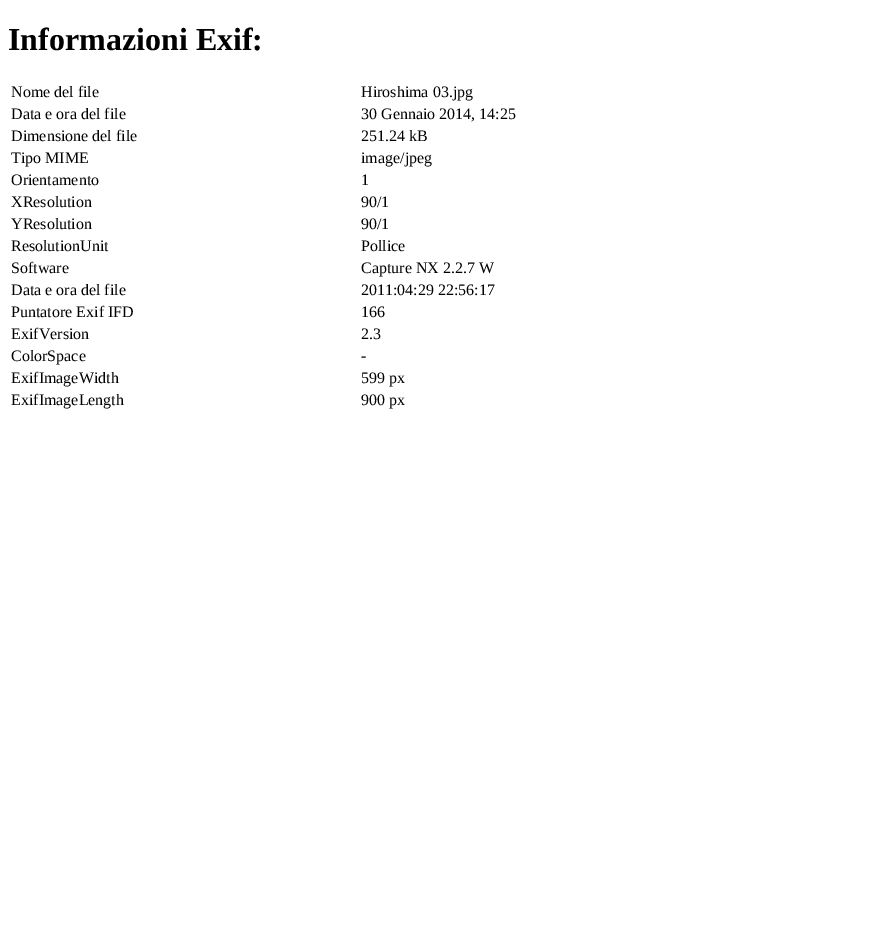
%!PS-Adobe-3.0
%%BoundingBox: 0 0 881 926
%%LanguageLevel: 3
%%Pages: 1
%%EndComments
%%BeginProlog
/setink { 3 { 255 div 3 1 roll } repeat setrgbcolor } def
/usefont { [ exch dup neg 0 0 3 -1 roll 0 0 ] selectfont } def
/drawtext { setink usefont moveto show } def
/fillbox { setink rectfill } def
%%EndProlog
%%BeginSetup
<< /PageSize [881 926] >> setpagedevice
%%EndSetup
%%Page: 1 1
0 926 translate 1 -1 scale
4 setmiterlimit
0 0 881 926 255 255 255 fillbox
(Informazioni Exif:) 8 50 /LiberationSerif-Bold 32 0 0 0 drawtext
(Nome del file) 11 97 /LiberationSerif-Regular 16 0 0 0 drawtext
(Hiroshima 03.jpg) 361 97 /LiberationSerif-Regular 16 0 0 0 drawtext
(Data e ora del file) 11 119 /LiberationSerif-Regular 16 0 0 0 drawtext
(30 Gennaio 2014, 14:25) 361 119 /LiberationSerif-Regular 16 0 0 0 drawtext
(Dimensione del file) 11 141 /LiberationSerif-Regular 16 0 0 0 drawtext
(251.24 kB) 361 141 /LiberationSerif-Regular 16 0 0 0 drawtext
(Tipo MIME) 11 163 /LiberationSerif-Regular 16 0 0 0 drawtext
(image/jpeg) 361 163 /LiberationSerif-Regular 16 0 0 0 drawtext
(Orientamento) 11 185 /LiberationSerif-Regular 16 0 0 0 drawtext
(1) 361 185 /LiberationSerif-Regular 16 0 0 0 drawtext
(XResolution) 11 207 /LiberationSerif-Regular 16 0 0 0 drawtext
(90/1) 361 207 /LiberationSerif-Regular 16 0 0 0 drawtext
(YResolution) 11 229 /LiberationSerif-Regular 16 0 0 0 drawtext
(90/1) 361 229 /LiberationSerif-Regular 16 0 0 0 drawtext
(ResolutionUnit) 11 251 /LiberationSerif-Regular 16 0 0 0 drawtext
(Pollice) 361 251 /LiberationSerif-Regular 16 0 0 0 drawtext
(Software) 11 273 /LiberationSerif-Regular 16 0 0 0 drawtext
(Capture NX 2.2.7 W) 361 273 /LiberationSerif-Regular 16 0 0 0 drawtext
(Data e ora del file) 11 295 /LiberationSerif-Regular 16 0 0 0 drawtext
(2011:04:29 22:56:17) 361 295 /LiberationSerif-Regular 16 0 0 0 drawtext
(Puntatore Exif IFD) 11 317 /LiberationSerif-Regular 16 0 0 0 drawtext
(166) 361 317 /LiberationSerif-Regular 16 0 0 0 drawtext
(ExifVersion) 11 339 /LiberationSerif-Regular 16 0 0 0 drawtext
(2.3) 361 339 /LiberationSerif-Regular 16 0 0 0 drawtext
(ColorSpace) 11 361 /LiberationSerif-Regular 16 0 0 0 drawtext
(-) 361 361 /LiberationSerif-Regular 16 0 0 0 drawtext
(ExifImageWidth) 11 383 /LiberationSerif-Regular 16 0 0 0 drawtext
(599 px) 361 383 /LiberationSerif-Regular 16 0 0 0 drawtext
(ExifImageLength) 11 405 /LiberationSerif-Regular 16 0 0 0 drawtext
(900 px) 361 405 /LiberationSerif-Regular 16 0 0 0 drawtext
showpage
%%EOF
